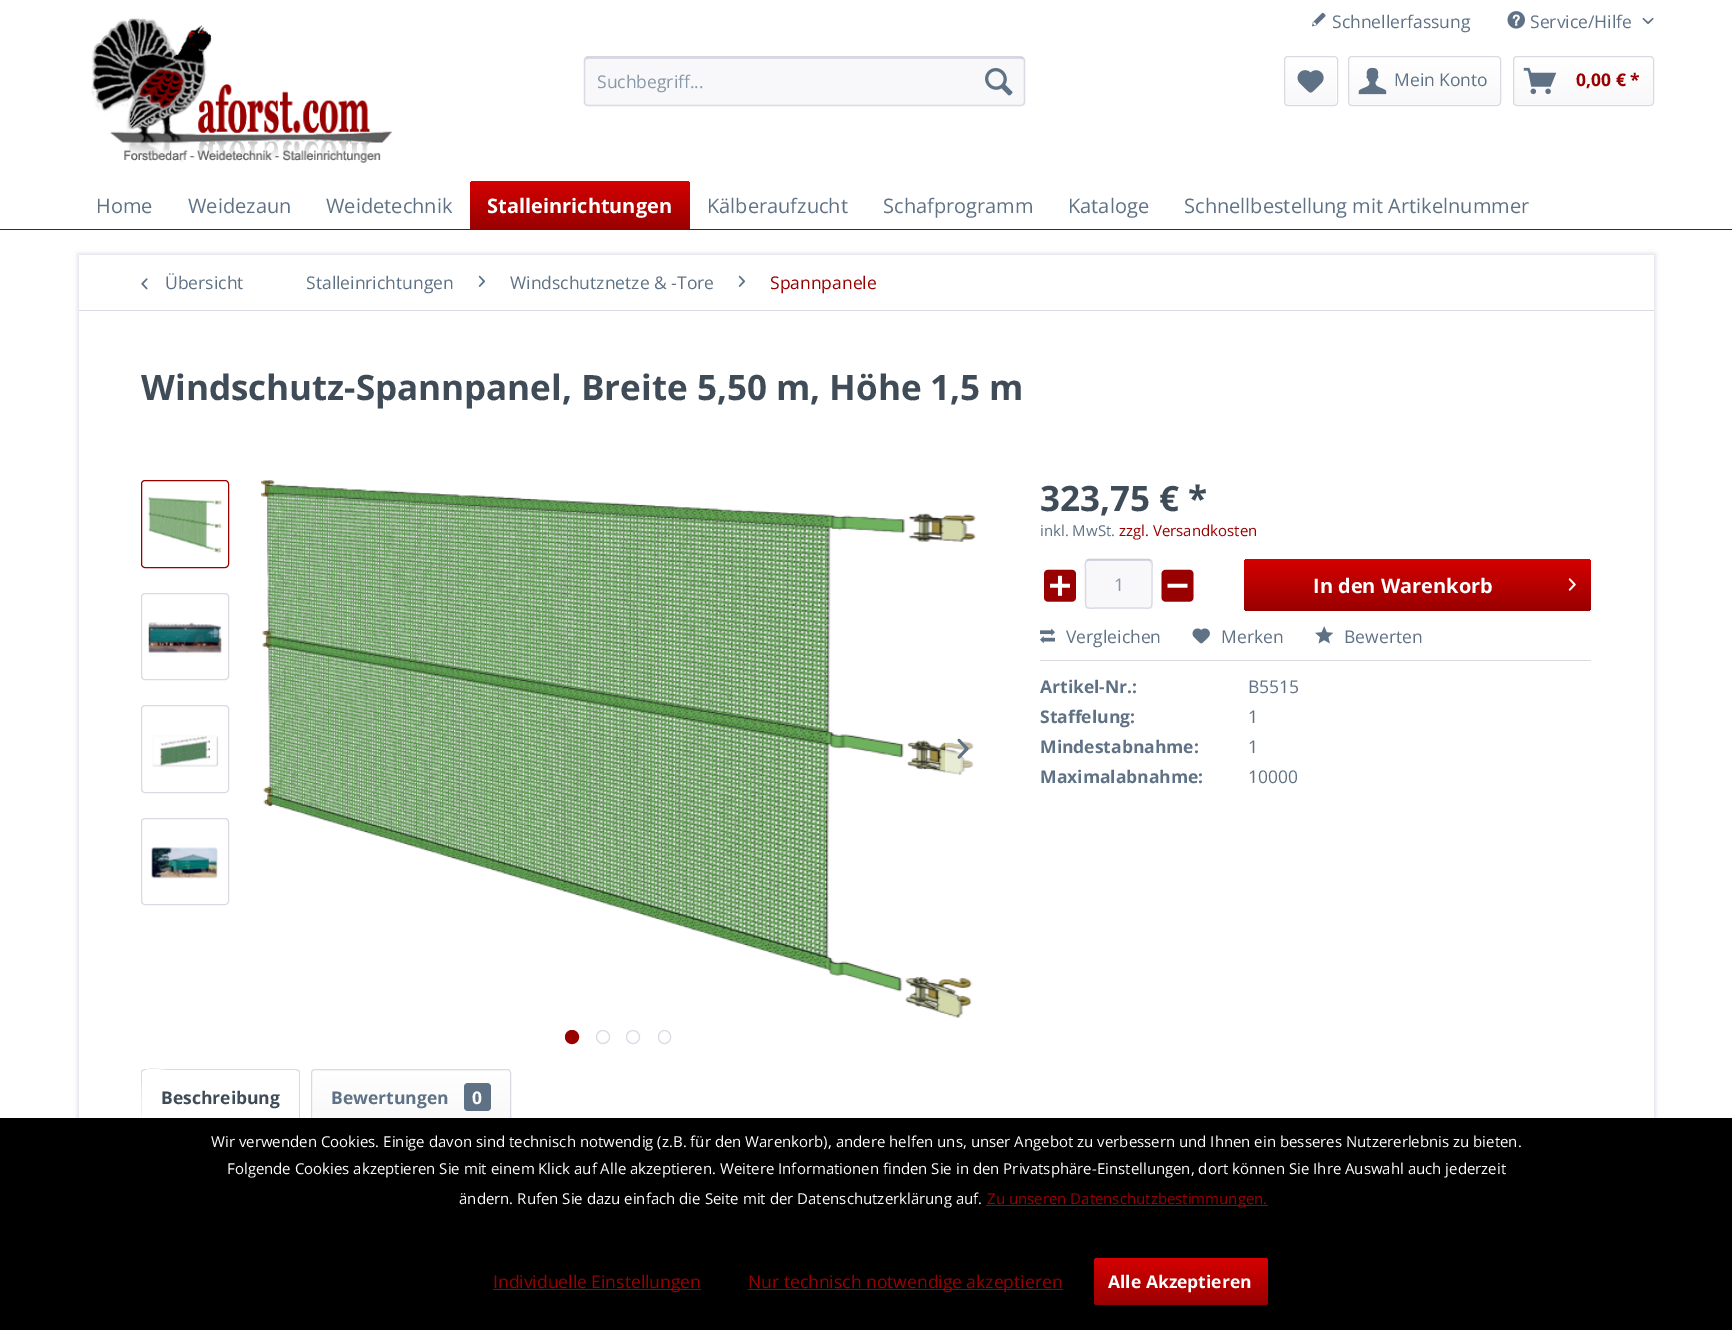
%!PS-Adobe-3.0
%%BoundingBox: 0 0 1732 1330
%%LanguageLevel: 3
%%Pages: 1
%%EndComments
%%BeginProlog
/setink { 3 { 255 div 3 1 roll } repeat setrgbcolor } def
/usefont { [ exch dup neg 0 0 3 -1 roll 0 0 ] selectfont } def
/drawtext { setink usefont moveto show } def
/fillbox { setink rectfill } def
/setalpha { dup .setfillconstantalpha .setstrokeconstantalpha } def
/disc { newpath 0 360 arc closepath } def
/rrect { 5 dict begin { /r /h /w /y /x } { exch def } forall
  x r add y moveto x w add y 2 copy h add r arct x w add y h add x 1 index r arct
  x y h add x y r arct x y 2 copy exch w add exch r arct closepath end } def
/softshadow { 12 dict begin { /a /b /q /h /w /y /x } { exch def } forall gsave /was 0 def
  9 -2 -9 { dup b mul 4 div /e exch def 1 sub .425 mul 2.718 exch exp 1 add a .99 .min exch div /now exch def
    1 1 now sub 1 was sub div sub setalpha /was now def
    w h .min e 2 mul add 0 gt { x e sub y e sub w e 2 mul add h e 2 mul add
      q e add b .6 mul add w h .min 2 div e add .min 0 .max rrect fill } if } for grestore end } def
/drawimage { 5 dict begin { /h /w /y /x /name } { exch def } forall
  gsave x y translate w h scale
  w h 8 [w 0 0 h 0 0] name (r) file false 3 colorimage grestore end } def
%%EndProlog
%%BeginSetup
<< /PageSize [1732 1330] /PageUsesTransparency true >> setpagedevice
%%EndSetup
%%Page: 1 1
0 .pushpdf14devicefilter
0 1330 translate 1 -1 scale
4 setmiterlimit
0 0 1732 1330 255 255 255 fillbox
(assets/img1.rgb) 1312 12 14 15 drawimage
(Schnellerfassung) 1332 28 /OpenSans-Regular 17.5 95 114 133 drawtext
(assets/img2.rgb) 1507 11 18 18 drawimage
(Service/Hilfe) 1530 28 /OpenSans-Regular 17.5 95 114 133 drawtext
(assets/img3.rgb) 1642 17 12 8 drawimage
(assets/img4.rgb) 91 18 301 145 drawimage
248 248 250 setink
584 56 441 50 4 rrect fill
218 218 229 setink
588 59 moveto 1021 59 lineto 1023 59 1024 60 1024 61 curveto 1024 59 1023 58 1022 58 curveto 588 58 lineto 586 59 lineto 585 61 lineto 585 60 586 59 588 59 curveto closepath fill
203 203 219 setink
1.2 setlinewidth
585.5 58 moveto 587.5 57 lineto 1021 57 lineto 1023.5 58 lineto stroke
218 218 229 setink
1023.5 58 moveto 1024.5 60 lineto 1024.5 102.5 lineto 1023.5 104.5 lineto 1021 105.5 lineto 587.5 105.5 lineto 585.5 104.5 lineto 584.5 102.5 lineto 584.5 60 lineto 585.5 58 lineto stroke
(Suchbegriff...) 597 88 /OpenSans-Regular 17.5 135 152 169 drawtext
(assets/img5.rgb) 985 68 28 28 drawimage
gsave 1285 58 51 47 2.5 rrect clip newpath
<< /ShadingType 2 /ColorSpace /DeviceRGB /Coords [1311 58 1311 105] /Extend [true true] /Function << /FunctionType 2 /Domain [0 1] /C0 [1 1 1] /C1 [0.973 0.973 0.98] /N 1 >> >> shfill grestore
218 218 229 setink
1 setlinewidth
1284.5 56.5 53 49 3.5 rrect stroke
(assets/img6.rgb) 1297 70 27 23 drawimage
gsave 1349 58 151 47 2.5 rrect clip newpath
<< /ShadingType 2 /ColorSpace /DeviceRGB /Coords [1424 57 1424 105] /Extend [true true] /Function << /FunctionType 2 /Domain [0 1] /C0 [1 1 1] /C1 [0.973 0.973 0.98] /N 1 >> >> shfill grestore
1348.5 56.5 152 49 3.5 rrect stroke
(assets/img7.rgb) 1358 67 29 28 drawimage
(Mein Konto) 1394 86 /OpenSans-Regular 17.5 95 114 133 drawtext
gsave 1514 58 139 47 2.5 rrect clip newpath
<< /ShadingType 2 /ColorSpace /DeviceRGB /Coords [1583 57 1583 105] /Extend [true true] /Function << /FunctionType 2 /Domain [0 1] /C0 [1 1 1] /C1 [0.973 0.973 0.98] /N 1 >> >> shfill grestore
218 218 229 setink
1513.5 56.5 140 49 3.5 rrect stroke
(assets/img8.rgb) 1523 67 34 28 drawimage
(0,00 € *) 1576 86 /OpenSans-Bold 17.5 153 0 0 drawtext
0 229 1732 1 153 0 0 fillbox
(Home) 96 213 /OpenSans-Regular 20 95 114 133 drawtext
(Weidezaun) 188 213 /OpenSans-Regular 20 95 114 133 drawtext
(Weidetechnik) 326 213 /OpenSans-Regular 20 95 114 133 drawtext
gsave 474 181 moveto 686 181 lineto 688 181 690 183 690 185 curveto 690 229 lineto 470 229 lineto 470 185 lineto 470 183 472 181 474 181 curveto closepath clip newpath
<< /ShadingType 2 /ColorSpace /DeviceRGB /Coords [580 181 580 229] /Extend [true true] /Function << /FunctionType 2 /Domain [0 1] /C0 [0.839 0 0] /C1 [0.6 0 0] /N 1 >> >> shfill grestore
(Stalleinrichtungen) 487 213 /OpenSans-Bold 20 255 255 255 drawtext
(Kälberaufzucht) 707 213 /OpenSans-Regular 20 95 114 133 drawtext
(Schafprogramm) 883 213 /OpenSans-Regular 20 95 114 133 drawtext
(Kataloge) 1068 213 /OpenSans-Regular 20 95 114 133 drawtext
(Schnellbestellung mit Artikelnummer) 1184 213 /OpenSans-Regular 20 95 114 133 drawtext
218 218 229 setink
78 254 1577 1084 0 2.5 1 softshadow
79 255 1575 863 255 255 255 fillbox
79 310 1575 1 218 218 229 fillbox
(assets/img9.rgb) 141 278 7 12 drawimage
(Übersicht) 165 289 /OpenSans-Regular 17.5 95 114 133 drawtext
(Stalleinrichtungen) 306 289 /OpenSans-Regular 17.5 95 114 133 drawtext
(assets/img10.rgb) 478 275 7 12 drawimage
(Windschutznetze & -Tore) 510 289 /OpenSans-Regular 17.5 95 114 133 drawtext
(assets/img10.rgb) 738 275 7 12 drawimage
(Spannpanele) 770 289 /OpenSans-Regular 17.5 153 0 0 drawtext
(Windschutz-Spannpanel, Breite 5,50 m, Höhe 1,5 m) 141 400 /OpenSans-Bold 35 63 76 88 drawtext
153 0 0 setink
141.5 480.5 87 87 3.5 rrect stroke
(assets/img11.rgb) 148 497 74 56 drawimage
218 218 229 setink
141.5 593.5 87 86 3.5 rrect stroke
(assets/img12.rgb) 148 622 74 32 drawimage
141.5 705.5 87 87 3.5 rrect stroke
(assets/img13.rgb) 152 735 67 32 drawimage
141.5 818.5 87 86 3.5 rrect stroke
(assets/img14.rgb) 151 847 68 32 drawimage
(assets/img15.rgb) 261 480 715 538 drawimage
0.5 setalpha
255 255 255 setink
948.5 706 moveto 981 706 lineto 981 791 lineto 948.5 791 lineto 947 791 946 790 946 788.5 curveto 946 708.5 lineto 946 707 947 706 948.5 706 curveto closepath fill
949 705.5 moveto 982.5 705.5 lineto 982.5 792.5 lineto 949 792.5 lineto 947 792.5 945.5 791 945.5 789 curveto 945.5 709 lineto 945.5 707 947 705.5 949 705.5 curveto closepath stroke
1 setalpha
(assets/img16.rgb) 957 738 12 21 drawimage
153 0 0 setink
572 1037 6.5 disc gsave fill grestore
stroke
218 218 229 setink
603 1037 6.5 disc stroke
633 1037 6.5 disc stroke
658.5 1030.5 12 13 6 rrect stroke
(323,75 € *) 1040 511 /OpenSans-Bold 35 63 76 88 drawtext
(inkl. MwSt.) 1040 536 /OpenSans-Regular 15 95 114 133 drawtext
(zzgl. Versandkosten) 1119 536 /OpenSans-Regular 15 153 0 0 drawtext
(assets/img17.rgb) 1044 569 32 33 drawimage
248 248 250 setink
1085 559 68 50 4 rrect fill
218 218 229 setink
1089 561 moveto 1149 561 lineto 1150 561 1151 562 1151 564 curveto 1151 557 1144 560 1138 560 curveto 1098 560 lineto 1093 560 1086 557 1086 564 curveto 1086 562 1087 561 1089 561 curveto closepath fill
203 203 219 setink
1.2 setlinewidth
1086.5 560.5 moveto 1088.5 559.5 lineto 1149 559.5 lineto 1151 560.5 lineto stroke
218 218 229 setink
1151 560.5 moveto 1153 562.5 1152 568.5 1152 569.5 curveto 1152 598 lineto 1152 610.5 1152 608 1139 608 curveto 1099 608 lineto 1085.5 608 1085.5 610.5 1085.5 598 curveto 1085.5 569.5 lineto 1085.5 568.5 1084.5 562.5 1086.5 560.5 curveto stroke
(1) 1114 591 /OpenSans-Regular 17.5 135 152 169 drawtext
(assets/img18.rgb) 1161 569 33 33 drawimage
gsave 1244 559 347 52 4 rrect clip newpath
<< /ShadingType 2 /ColorSpace /DeviceRGB /Coords [1418 559 1418 611] /Extend [true true] /Function << /FunctionType 2 /Domain [0 1] /C0 [0.839 0 0] /C1 [0.6 0 0] /N 1 >> >> shfill grestore
(In den Warenkorb) 1313 593 /OpenSans-Bold 20 255 255 255 drawtext
(assets/img19.rgb) 1568 578 8 13 drawimage
1040 660 551 1 218 218 229 fillbox
(assets/img20.rgb) 1040 628 15 16 drawimage
(Vergleichen) 1066 643 /OpenSans-Regular 17.5 95 114 133 drawtext
(assets/img21.rgb) 1192 628 18 16 drawimage
(Merken) 1221 643 /OpenSans-Regular 17.5 95 114 133 drawtext
(assets/img22.rgb) 1315 626 19 18 drawimage
(Bewerten) 1344 643 /OpenSans-Regular 17.5 95 114 133 drawtext
(Artikel-Nr.:) 1040 693 /OpenSans-Bold 17.5 95 114 133 drawtext
(B5515) 1248 693 /OpenSans-Regular 17.5 95 114 133 drawtext
(Staffelung:) 1040 723 /OpenSans-Bold 17.5 95 114 133 drawtext
(1) 1248 723 /OpenSans-Regular 17.5 95 114 133 drawtext
(Mindestabnahme:) 1040 753 /OpenSans-Bold 17.5 95 114 133 drawtext
(1) 1248 753 /OpenSans-Regular 17.5 95 114 133 drawtext
(Maximalabnahme:) 1040 783 /OpenSans-Bold 17.5 95 114 133 drawtext
(10000) 1248 783 /OpenSans-Regular 17.5 95 114 133 drawtext
255 255 255 setink
145 1069 moveto 296 1069 lineto 298 1069 300 1071 300 1073 curveto 300 1126 lineto 141 1126 lineto 141 1073 lineto 141 1071 143 1069 145 1069 curveto closepath fill
218 218 229 setink
145 1069 moveto 142 1070 lineto 143 1071 lineto 151 1066 161 1070 170 1070 curveto 296 1070 lineto 298 1071 lineto 299 1070 lineto 296 1069 lineto closepath fill
299 1070 moveto 300 1072 lineto 300 1126 lineto 299 1125 lineto 299 1072 lineto 298 1071 lineto closepath fill
141 1071 moveto 142 1070 lineto 143 1071 lineto 142 1072 lineto 142 1125 lineto 142 1126 lineto closepath fill
(Beschreibung) 161 1104 /OpenSans-Bold 17.5 63 76 88 drawtext
gsave 315.5 1070 moveto 507.5 1070 lineto 509 1070 510 1071 510 1072.5 curveto 510 1125 lineto 313 1125 lineto 313 1072.5 lineto 313 1071 314 1070 315.5 1070 curveto closepath clip newpath
<< /ShadingType 2 /ColorSpace /DeviceRGB /Coords [411 1070 411 1125] /Extend [true true] /Function << /FunctionType 2 /Domain [0 1] /C0 [1 1 1] /C1 [0.973 0.973 0.98] /N 1 >> >> shfill grestore
218 218 229 setink
1 setlinewidth
315 1069.5 moveto 507 1069.5 lineto 509 1069.5 510.5 1071 510.5 1073 curveto 510.5 1125.5 lineto 311.5 1125.5 lineto 311.5 1073 lineto 311.5 1071 313 1069.5 315 1069.5 curveto closepath stroke
(Bewertungen) 331 1104 /OpenSans-Bold 17.5 95 114 133 drawtext
464 1083 27 28 4 rrect fill
(0) 472 1104 /OpenSans-Bold 17.5 255 255 255 drawtext
0 1118 1732 212 0 0 0 fillbox
(Wir verwenden Cookies. Einige davon sind technisch notwendig \(z.B. für den Warenkorb\), andere helfen uns, unser Angebot zu verbessern und Ihnen ein besseres Nutzererlebnis zu bieten.) 211 1147 /OpenSans-Regular 15 255 255 255 drawtext
(Folgende Cookies akzeptieren Sie mit einem Klick auf Alle akzeptieren. Weitere Informationen finden Sie in den Privatsphäre-Einstellungen, dort können Sie Ihre Auswahl auch jederzeit) 227 1174 /OpenSans-Regular 15 255 255 255 drawtext
(ändern. Rufen Sie dazu einfach die Seite mit der Datenschutzerklärung auf.) 459 1204 /OpenSans-Regular 15 255 255 255 drawtext
986 1205 282 1 153 0 0 fillbox
(Zu unseren Datenschutzbestimmungen.) 987 1204 /OpenSans-Regular 15 153 0 0 drawtext
493 1289 208 1 153 0 0 fillbox
(Individuelle Einstellungen) 493 1288 /OpenSans-Regular 17.5 153 0 0 drawtext
748 1289 315 1 153 0 0 fillbox
(Nur technisch notwendige akzeptieren) 748 1288 /OpenSans-Regular 17.5 153 0 0 drawtext
gsave 1094 1258 174 47 4 rrect clip newpath
<< /ShadingType 2 /ColorSpace /DeviceRGB /Coords [1181 1258 1181 1305] /Extend [true true] /Function << /FunctionType 2 /Domain [0 1] /C0 [0.839 0 0] /C1 [0.6 0 0] /N 1 >> >> shfill grestore
(Alle Akzeptieren) 1108 1288 /OpenSans-Bold 17.5 255 255 255 drawtext
.poppdf14devicefilter showpage
%%EOF
